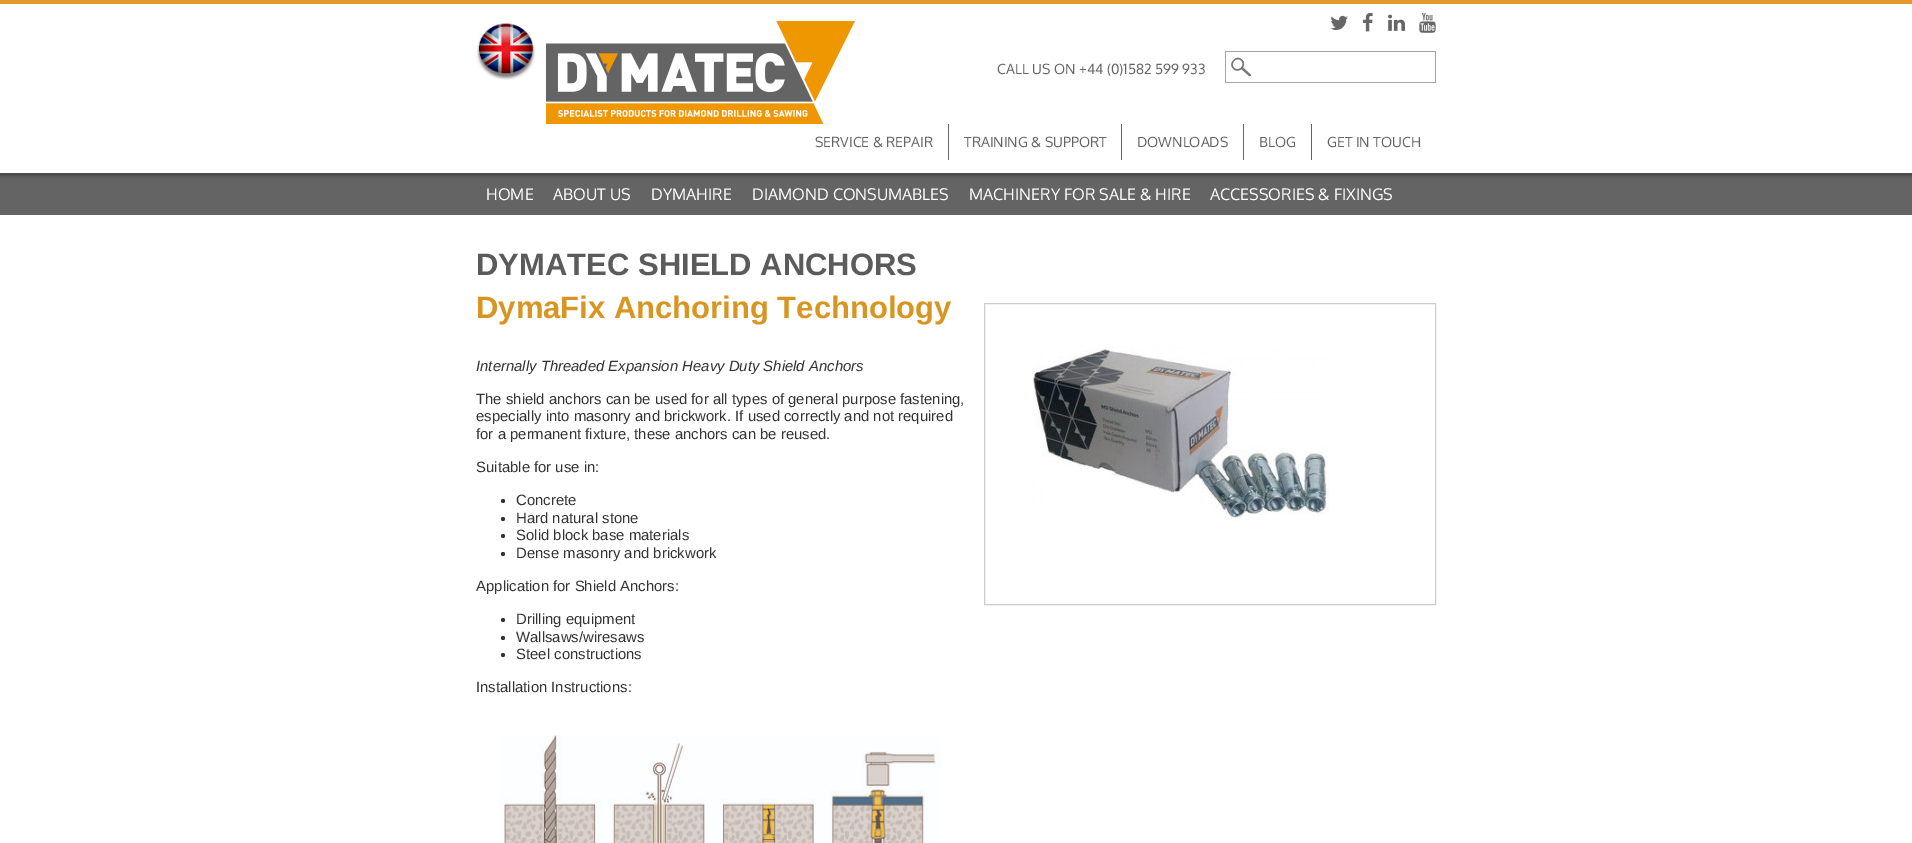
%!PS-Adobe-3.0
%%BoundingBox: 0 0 1912 843
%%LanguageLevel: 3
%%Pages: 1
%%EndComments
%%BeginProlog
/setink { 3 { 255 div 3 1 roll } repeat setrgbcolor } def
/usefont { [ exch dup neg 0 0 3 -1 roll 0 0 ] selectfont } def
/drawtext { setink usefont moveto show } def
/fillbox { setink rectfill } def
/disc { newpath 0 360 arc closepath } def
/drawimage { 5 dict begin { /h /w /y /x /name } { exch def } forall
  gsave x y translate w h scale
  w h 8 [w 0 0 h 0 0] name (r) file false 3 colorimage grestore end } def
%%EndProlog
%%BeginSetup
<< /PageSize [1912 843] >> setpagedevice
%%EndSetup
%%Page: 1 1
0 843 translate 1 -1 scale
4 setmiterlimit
0 0 1912 843 255 255 255 fillbox
(assets/img1.rgb) 0 173 1912 42 drawimage
0 0 1912 4 228 153 47 fillbox
(assets/img2.rgb) 476 23 60 57 drawimage
(assets/img3.rgb) 546 21 309 103 drawimage
(CALL US ON +44 \(0\)1582 599 933) 997 74 /Oxygen-Regular 14 100 100 100 drawtext
(assets/img4.rgb) 1231 57 20 20 drawimage
1225 51 211 1 164 164 164 fillbox
1225 82 181 1 164 164 164 fillbox
1225 51 1 32 164 164 164 fillbox
1435 51 1 32 164 164 164 fillbox
1406 82 30 1 164 164 164 fillbox
(assets/img5.rgb) 1330 15 18 15 drawimage
(assets/img6.rgb) 1363 13 10 19 drawimage
(assets/img7.rgb) 1388 14 17 17 drawimage
(assets/img8.rgb) 1419 13 17 20 drawimage
(SERVICE & REPAIR) 815 147 /Oxygen-Regular 14 100 100 100 drawtext
948 124 1 36 100 100 100 fillbox
(TRAINING & SUPPORT) 964 147 /Oxygen-Regular 14 100 100 100 drawtext
1121 124 1 36 100 100 100 fillbox
(DOWNLOADS) 1137 147 /Oxygen-Regular 14 100 100 100 drawtext
1243 124 1 36 100 100 100 fillbox
(BLOG) 1259 147 /Oxygen-Regular 14 100 100 100 drawtext
1311 124 1 36 100 100 100 fillbox
(GET IN TOUCH) 1327 147 /Oxygen-Regular 14 100 100 100 drawtext
(HOME) 486 200 /Oxygen-Regular 16 255 255 255 drawtext
(ABOUT US) 553 200 /Oxygen-Regular 16 255 255 255 drawtext
(DYMAHIRE) 651 200 /Oxygen-Regular 16 255 255 255 drawtext
(DIAMOND CONSUMABLES) 752 200 /Oxygen-Regular 16 255 255 255 drawtext
(MACHINERY FOR SALE & HIRE) 969 200 /Oxygen-Regular 16 255 255 255 drawtext
(ACCESSORIES & FIXINGS) 1210 200 /Oxygen-Regular 16 255 255 255 drawtext
(DYMATEC SHIELD ANCHORS) 476 275 /LiberationSans-Bold 31 91 91 91 drawtext
(DymaFix Anchoring Technology) 476 318 /LiberationSans-Bold 31 216 149 33 drawtext
204 204 204 setink
984.5 303.5 451 301 rectstroke
(assets/img9.rgb) 1033 345 296 177 drawimage
(Internally Threaded Expansion Heavy Duty Shield Anchors) 476 371 /LiberationSans-Italic 14.9 51 51 51 drawtext
(The shield anchors can be used for all types of general purpose fastening,) 476 404 /LiberationSans-Regular 14.9 51 51 51 drawtext
(especially into masonry and brickwork. If used correctly and not required) 476 421 /LiberationSans-Regular 14.9 51 51 51 drawtext
(for a permanent fixture, these anchors can be reused.) 476 439 /LiberationSans-Regular 14.9 51 51 51 drawtext
(Suitable for use in:) 476 472 /LiberationSans-Regular 14.9 51 51 51 drawtext
503 501 2 disc fill
(Concrete) 516 505 /LiberationSans-Regular 14.9 51 51 51 drawtext
503 519 2 disc fill
(Hard natural stone) 516 523 /LiberationSans-Regular 14.9 51 51 51 drawtext
503 536 2 disc fill
(Solid block base materials) 516 540 /LiberationSans-Regular 14.9 51 51 51 drawtext
503 554 2 disc fill
(Dense masonry and brickwork) 516 558 /LiberationSans-Regular 14.9 51 51 51 drawtext
(Application for Shield Anchors:) 476 591 /LiberationSans-Regular 14.9 51 51 51 drawtext
503 620 2 disc fill
(Drilling equipment) 516 624 /LiberationSans-Regular 14.9 51 51 51 drawtext
503 638 2 disc fill
(Wallsaws/wiresaws) 516 642 /LiberationSans-Regular 14.9 51 51 51 drawtext
503 655 2 disc fill
(Steel constructions) 516 659 /LiberationSans-Regular 14.9 51 51 51 drawtext
(Installation Instructions:) 476 692 /LiberationSans-Regular 14.9 51 51 51 drawtext
(assets/img10.rgb) 499 735 442 108 drawimage
showpage
%%EOF
